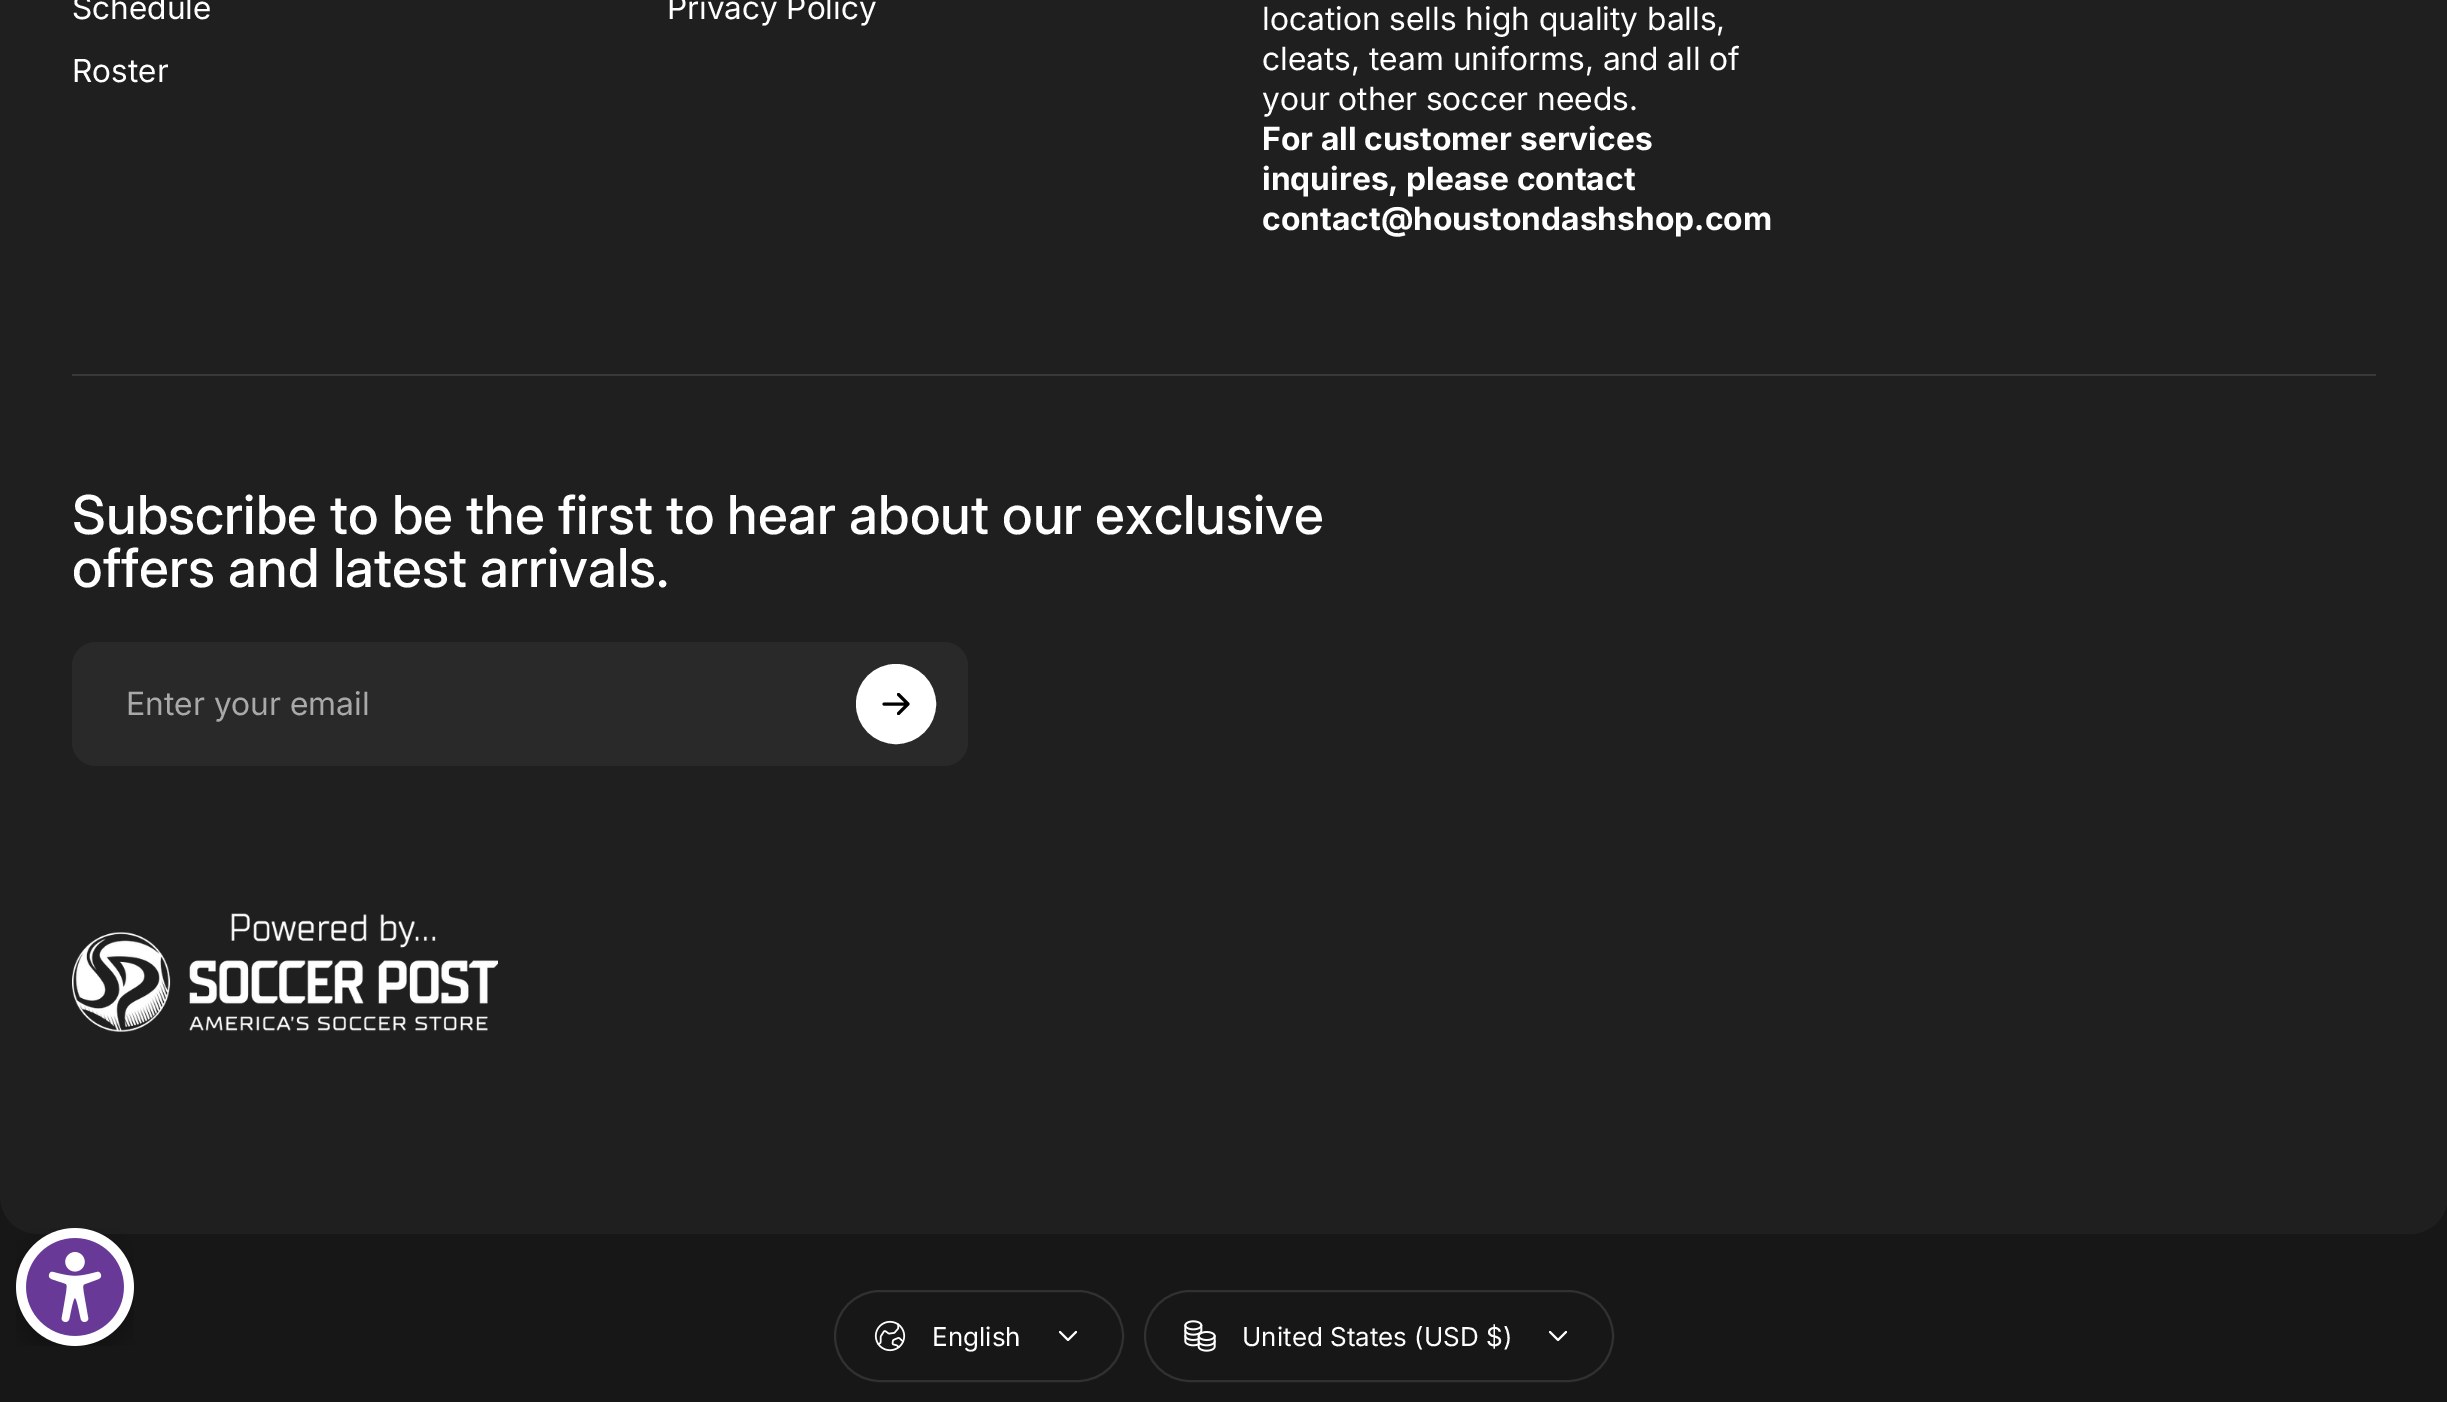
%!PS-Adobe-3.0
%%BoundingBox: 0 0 2447 1402
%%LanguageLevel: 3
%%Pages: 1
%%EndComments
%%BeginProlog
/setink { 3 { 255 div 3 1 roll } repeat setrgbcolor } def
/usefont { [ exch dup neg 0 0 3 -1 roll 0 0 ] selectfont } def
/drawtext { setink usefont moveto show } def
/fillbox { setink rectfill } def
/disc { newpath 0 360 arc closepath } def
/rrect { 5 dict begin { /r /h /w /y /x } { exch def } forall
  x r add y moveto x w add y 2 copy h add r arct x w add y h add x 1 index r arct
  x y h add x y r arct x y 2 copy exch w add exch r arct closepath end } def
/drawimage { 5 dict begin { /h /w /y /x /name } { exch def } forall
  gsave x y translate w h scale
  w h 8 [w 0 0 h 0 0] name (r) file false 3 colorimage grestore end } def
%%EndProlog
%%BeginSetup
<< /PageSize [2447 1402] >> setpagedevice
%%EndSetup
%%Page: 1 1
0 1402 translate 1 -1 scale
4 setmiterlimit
0 0 2447 1402 23 23 23 fillbox
31 31 31 setink
0 -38 moveto 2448 -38 lineto 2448 1196 lineto 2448 1217 2431 1234 2410 1234 curveto 38 1234 lineto 17 1234 0 1217 0 1196 curveto closepath fill
(Schedule) 72 19 /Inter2-Regular 31.75 255 255 255 drawtext
(Roster) 72 82 /Inter2-Regular 31.75 255 255 255 drawtext
(Privacy Policy) 667 19 /Inter2-Regular 31.75 255 255 255 drawtext
(location sells high quality balls,) 1262 30 /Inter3-Regular 32 255 255 255 drawtext
(cleats, team uniforms, and all of) 1262 70 /Inter3-Regular 32 255 255 255 drawtext
(your other soccer needs.) 1262 110 /Inter3-Regular 32 255 255 255 drawtext
(For all customer services) 1262 150 /Inter-Bold 32 255 255 255 drawtext
(inquires, please contact) 1262 190 /Inter-Bold 32 255 255 255 drawtext
(contact@houstondashshop.com) 1262 230 /Inter-Bold 32 255 255 255 drawtext
72 374 2304 2 57 57 57 fillbox
(Subscribe to be the first to hear about our exclusive) 72 534 /Inter-Medium 53.6 255 255 255 drawtext
(offers and latest arrivals.) 72 587 /Inter-Medium 53.6 255 255 255 drawtext
41 41 41 setink
72 642 896 124 24 rrect fill
(Enter your email) 126 715 /Inter3-Regular 32 169 169 169 drawtext
255 255 255 setink
896 704 38 disc gsave fill grestore
4 setlinewidth
stroke
0 0 0 setink
3 setlinewidth
1 setlinecap
1 setlinejoin
884 704 moveto 908 704 lineto 908 704 moveto 898.5 694.5 lineto 908 704 moveto 898.5 713.5 lineto stroke
(assets/img1.rgb) 72 913 426 119 drawimage
49 49 49 setink
2 setlinewidth
0 setlinecap
0 setlinejoin
835 1291 288 90 45 rrect stroke
(assets/img2.rgb) 874 1320 32 32 drawimage
(English) 932 1346 /Inter-Regular 26 255 255 255 drawtext
1 setlinecap
1 setlinejoin
1060 1332 moveto 1068 1340 lineto 1076 1332 lineto stroke
49 49 49 setink
0 setlinecap
0 setlinejoin
1145 1291 468 90 45 rrect stroke
(assets/img3.rgb) 1184 1320 32 32 drawimage
(United States \(USD $\)) 1242 1346 /Inter-Regular 26 255 255 255 drawtext
1 setlinecap
1 setlinejoin
1550 1332 moveto 1558 1340 lineto 1566 1332 lineto stroke
(assets/img4.rgb) 16 1228 118 118 drawimage
showpage
%%EOF
